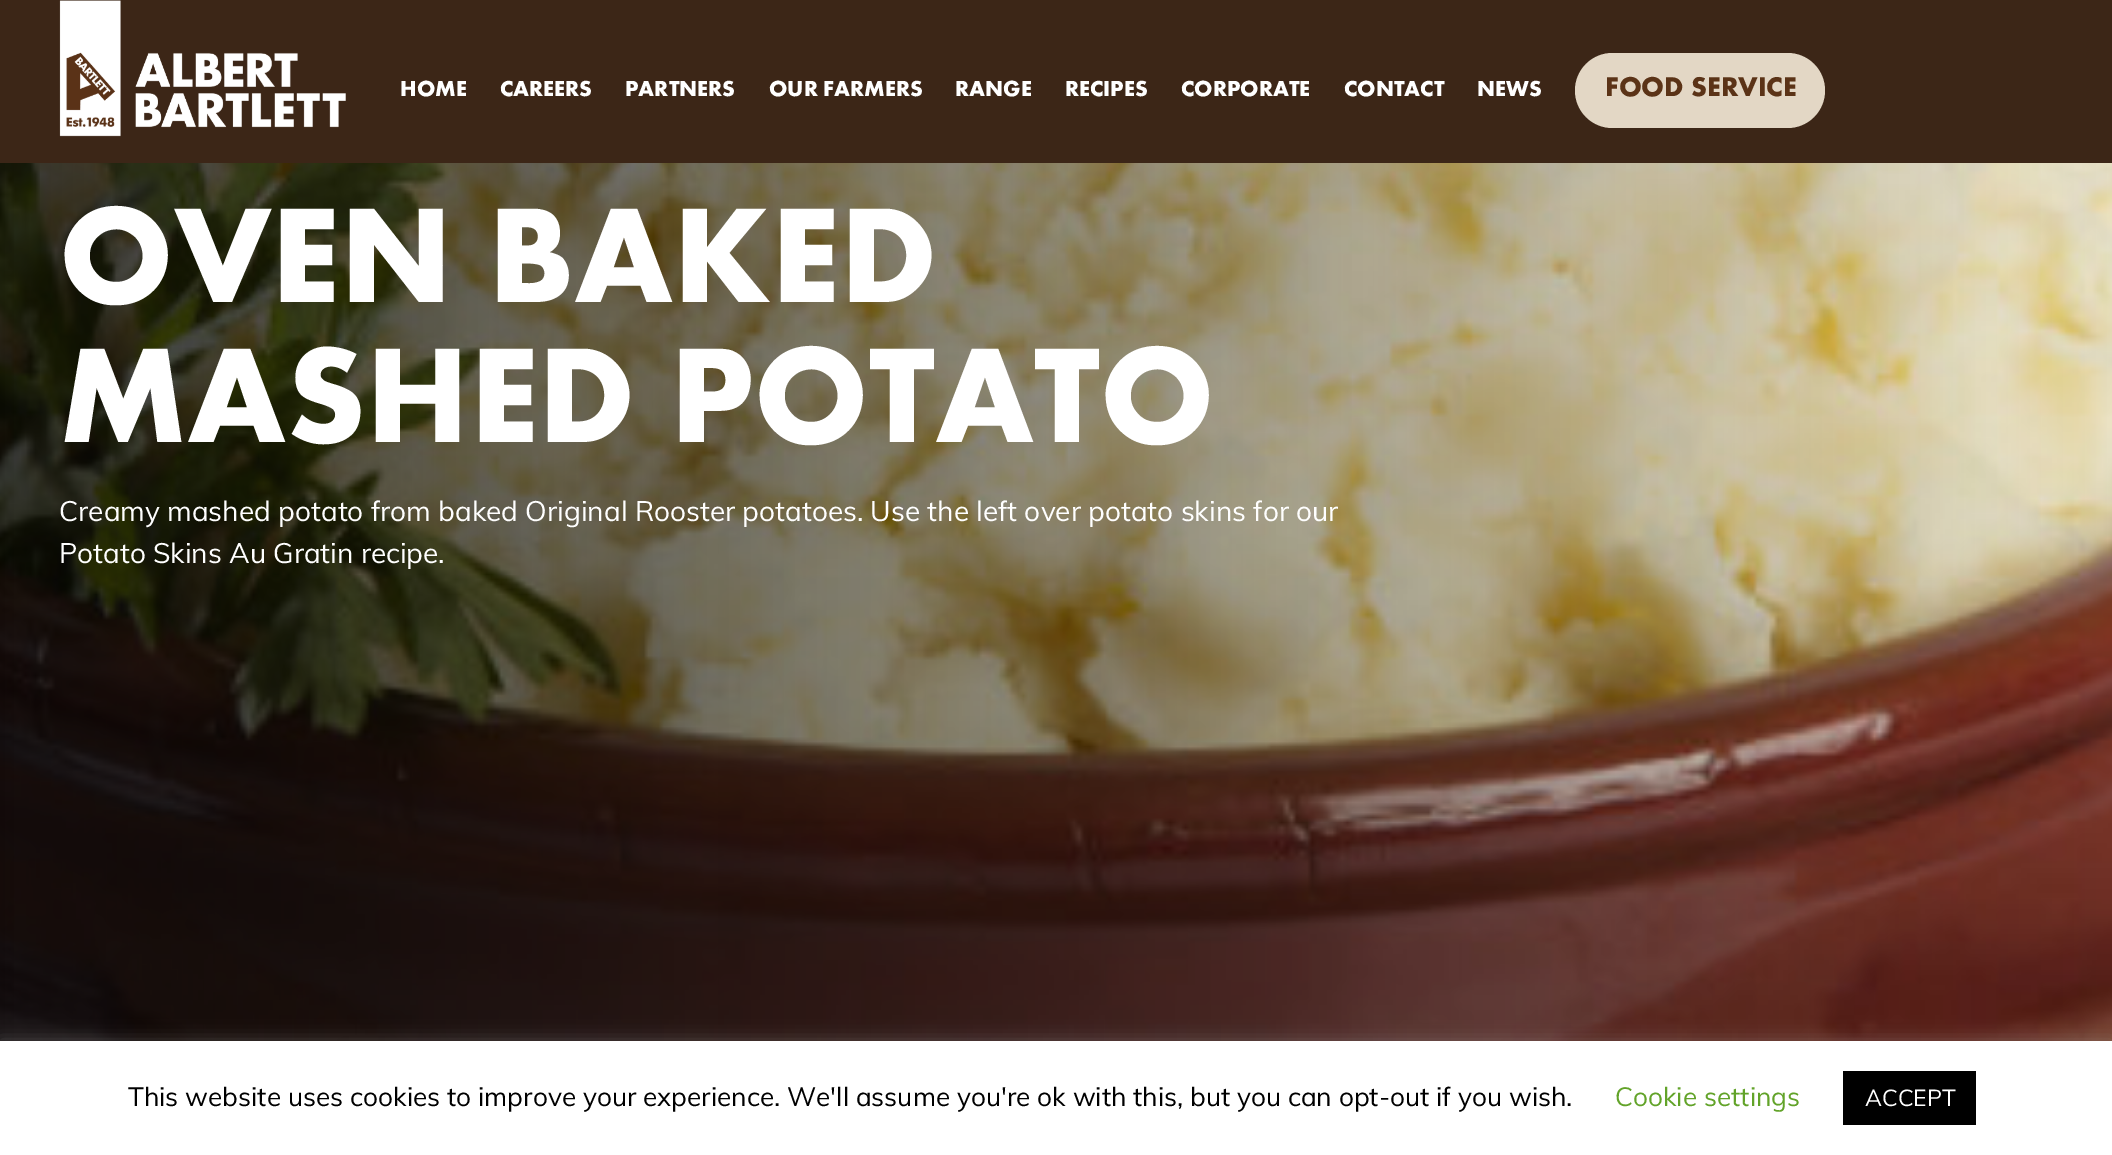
%!PS-Adobe-3.0
%%BoundingBox: 0 0 2112 1155
%%LanguageLevel: 3
%%Pages: 1
%%EndComments
%%BeginProlog
/setink { 3 { 255 div 3 1 roll } repeat setrgbcolor } def
/usefont { [ exch dup neg 0 0 3 -1 roll 0 0 ] selectfont } def
/drawtext { setink usefont moveto show } def
/fillbox { setink rectfill } def
/setalpha { dup .setfillconstantalpha .setstrokeconstantalpha } def
/rrect { 5 dict begin { /r /h /w /y /x } { exch def } forall
  x r add y moveto x w add y 2 copy h add r arct x w add y h add x 1 index r arct
  x y h add x y r arct x y 2 copy exch w add exch r arct closepath end } def
/softshadow { 12 dict begin { /a /b /q /h /w /y /x } { exch def } forall gsave /was 0 def
  9 -2 -9 { dup b mul 4 div /e exch def 1 sub .425 mul 2.718 exch exp 1 add a .99 .min exch div /now exch def
    1 1 now sub 1 was sub div sub setalpha /was now def
    w h .min e 2 mul add 0 gt { x e sub y e sub w e 2 mul add h e 2 mul add
      q e add b .6 mul add w h .min 2 div e add .min 0 .max rrect fill } if } for grestore end } def
/drawimage { 5 dict begin { /h /w /y /x /name } { exch def } forall
  gsave x y translate w h scale
  w h 8 [w 0 0 h 0 0] name (r) file false 3 colorimage grestore end } def
%%EndProlog
%%BeginSetup
<< /PageSize [2112 1155] /PageUsesTransparency true >> setpagedevice
%%EndSetup
%%Page: 1 1
0 .pushpdf14devicefilter
0 1155 translate 1 -1 scale
4 setmiterlimit
0 0 2112 1155 255 255 255 fillbox
0 0 2112 163 60 38 23 fillbox
(assets/img1.rgb) 59 0 287 137 drawimage
(HOME) 400 96 /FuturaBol-Regular 22.5 255 255 255 drawtext
(CAREERS) 500 96 /FuturaBol-Regular 22.5 255 255 255 drawtext
(PARTNERS) 625 96 /FuturaBol-Regular 22.5 255 255 255 drawtext
(OUR FARMERS) 769 96 /FuturaBol-Regular 22.5 255 255 255 drawtext
(RANGE) 955 96 /FuturaBol-Regular 22.5 255 255 255 drawtext
(RECIPES) 1065 96 /FuturaBol-Regular 22.5 255 255 255 drawtext
(CORPORATE) 1181 96 /FuturaBol-Regular 22.5 255 255 255 drawtext
(CONTACT) 1344 96 /FuturaBol-Regular 22.5 255 255 255 drawtext
(NEWS) 1477 96 /FuturaBol-Regular 22.5 255 255 255 drawtext
227 215 197 setink
1575 53 250 75 37.5 rrect fill
(FOOD SERVICE) 1605 96 /FuturaBol-Regular 28 91 51 23 drawtext
(assets/img2.rgb) 0 163 2112 878 drawimage
(OVEN BAKED) 59 302 /FuturaBol-Regular 140 255 255 255 drawtext
(MASHED POTATO) 59 442 /FuturaBol-Regular 140 255 255 255 drawtext
(Creamy mashed potato from baked Original Rooster potatoes. Use the left over potato skins for our) 59 521 /Muli-Regular 28 255 255 255 drawtext
(Potato Skins Au Gratin recipe.) 59 563 /Muli-Regular 28 255 255 255 drawtext
172 171 171 setink
0 1040 2112 113 0 9 0.3 softshadow
0 1041 2112 114 255 255 255 fillbox
(This website uses cookies to improve your experience. We'll assume you're ok with this, but you can opt-out if you wish.) 128 1106 /Muli-Regular 26.25 0 0 0 drawtext
(Cookie settings) 1615 1106 /Muli-Regular 26.25 98 163 41 drawtext
1843 1071 133 54 0 0 0 fillbox
(ACCEPT) 1865 1106 /Muli-Regular 23 255 255 255 drawtext
.poppdf14devicefilter showpage
%%EOF
